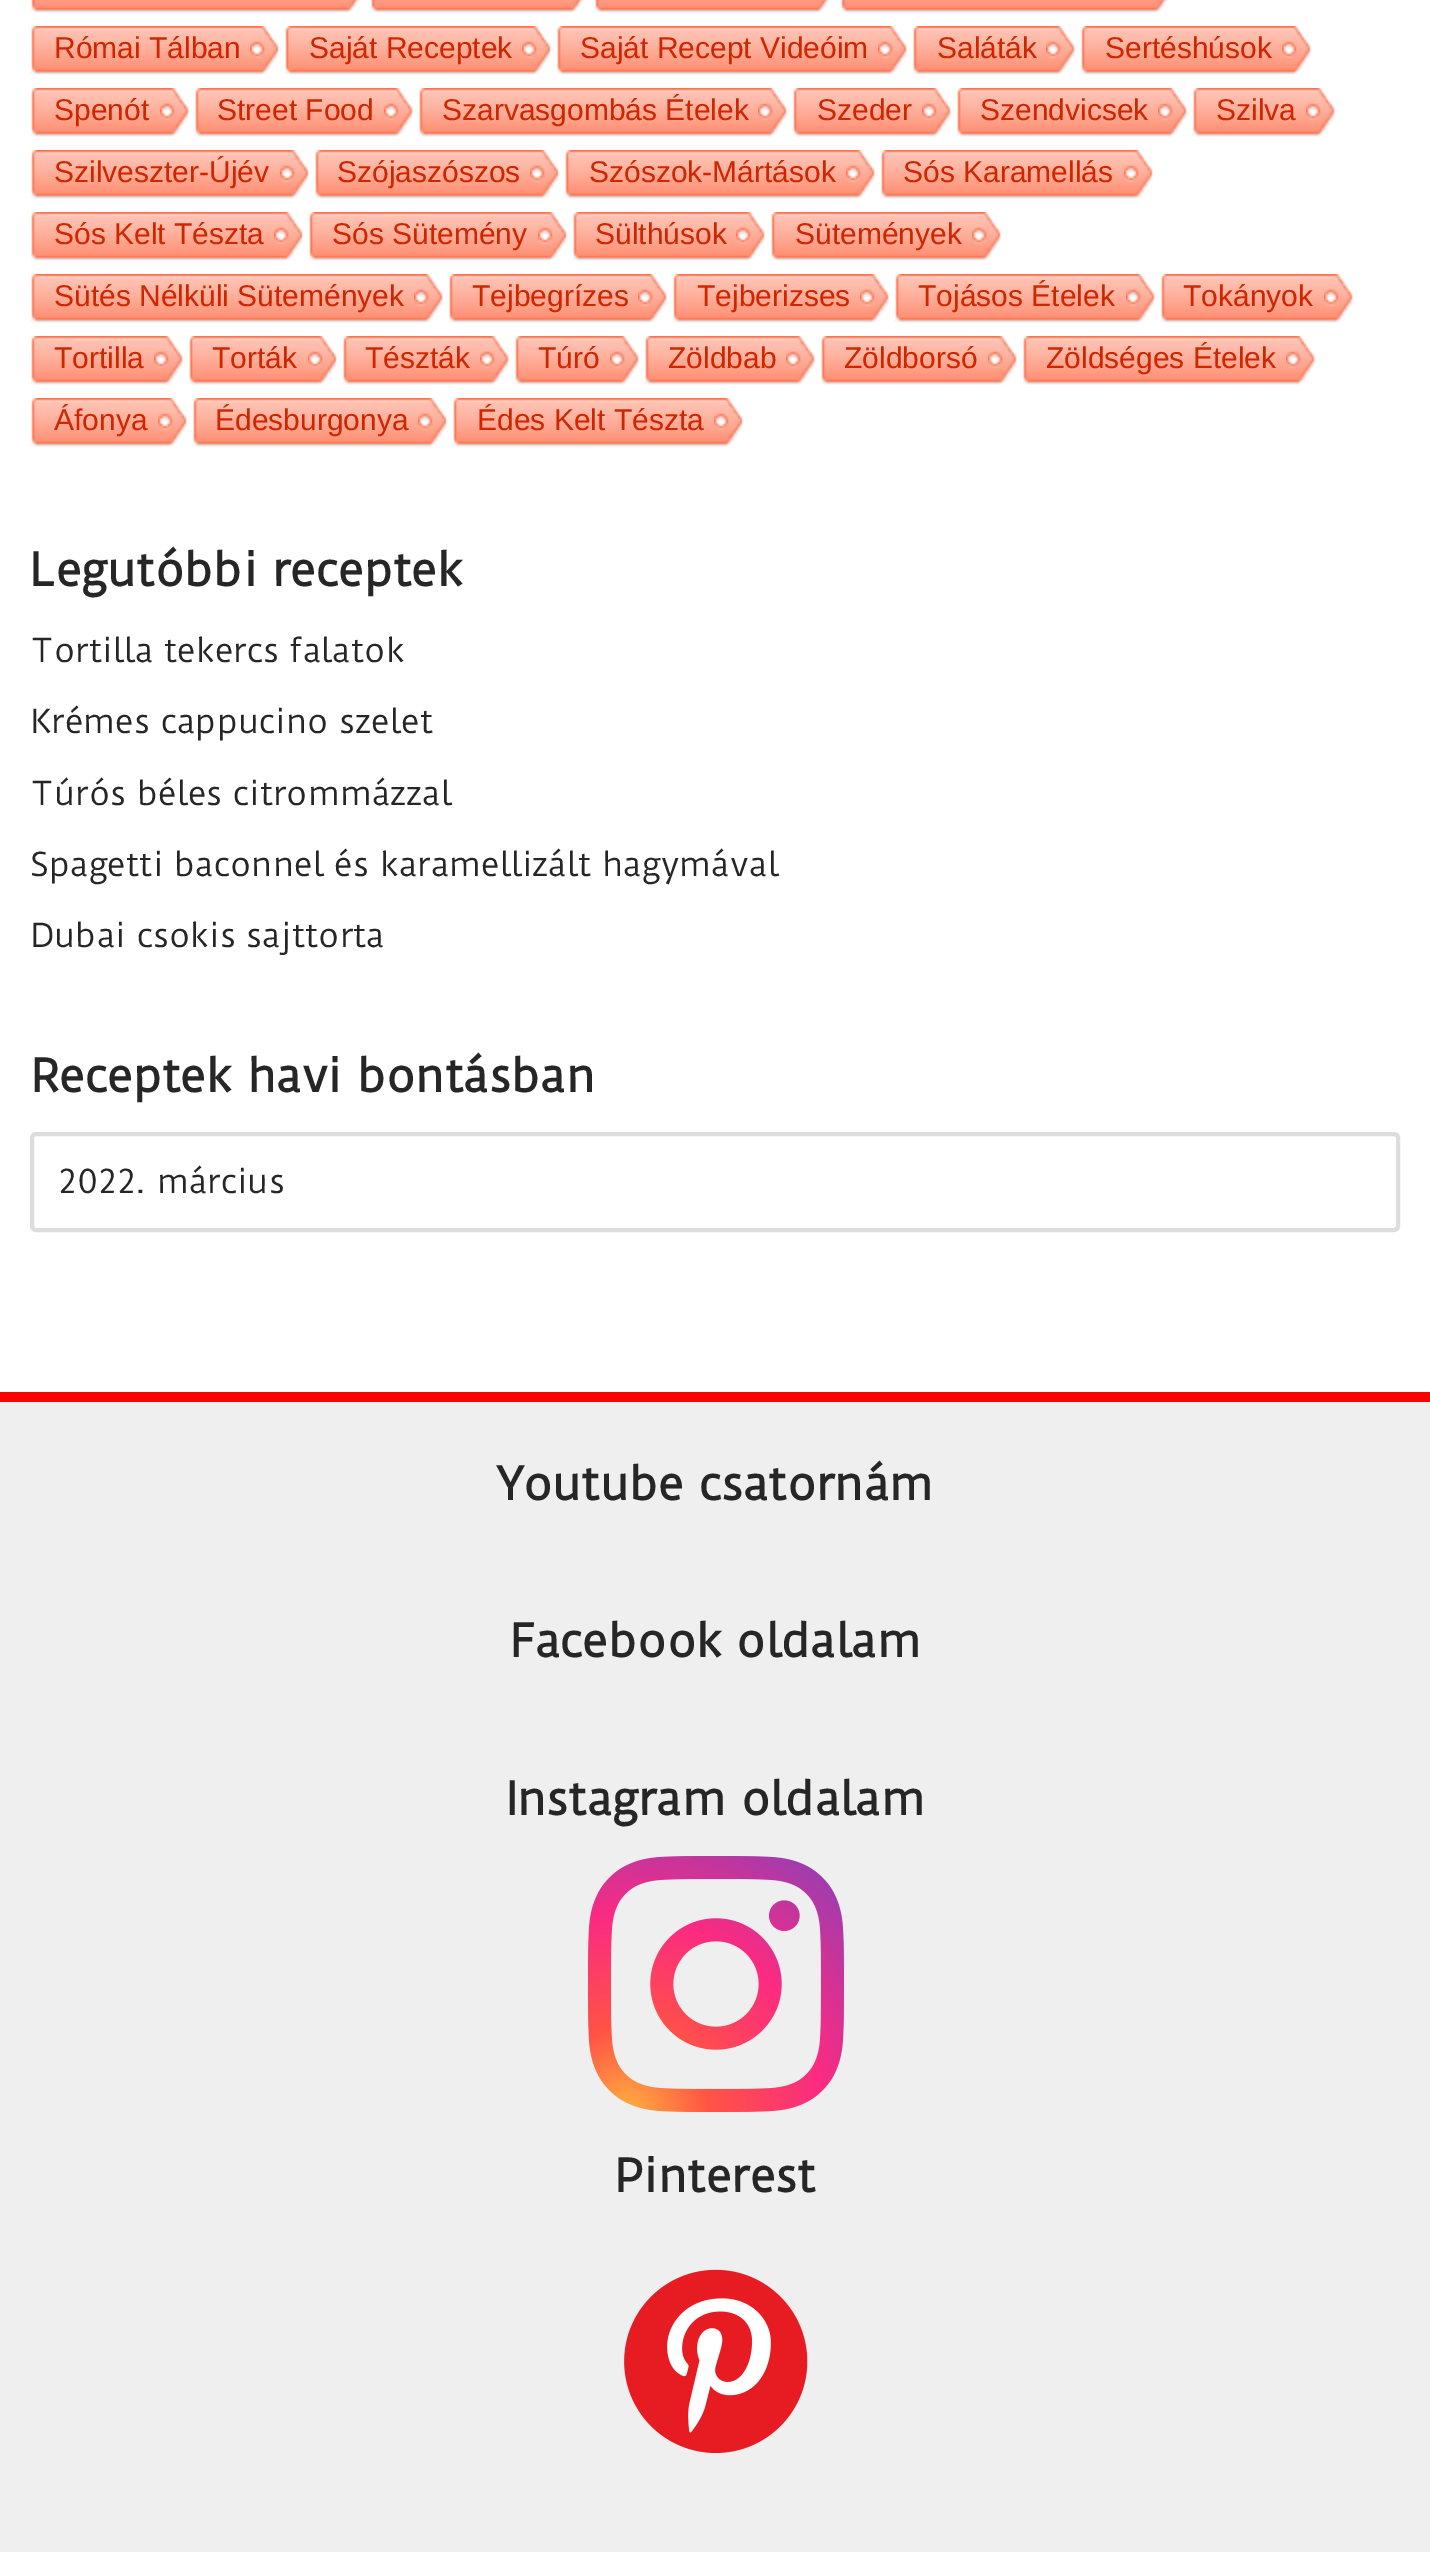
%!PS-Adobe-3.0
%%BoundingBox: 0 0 1430 2554
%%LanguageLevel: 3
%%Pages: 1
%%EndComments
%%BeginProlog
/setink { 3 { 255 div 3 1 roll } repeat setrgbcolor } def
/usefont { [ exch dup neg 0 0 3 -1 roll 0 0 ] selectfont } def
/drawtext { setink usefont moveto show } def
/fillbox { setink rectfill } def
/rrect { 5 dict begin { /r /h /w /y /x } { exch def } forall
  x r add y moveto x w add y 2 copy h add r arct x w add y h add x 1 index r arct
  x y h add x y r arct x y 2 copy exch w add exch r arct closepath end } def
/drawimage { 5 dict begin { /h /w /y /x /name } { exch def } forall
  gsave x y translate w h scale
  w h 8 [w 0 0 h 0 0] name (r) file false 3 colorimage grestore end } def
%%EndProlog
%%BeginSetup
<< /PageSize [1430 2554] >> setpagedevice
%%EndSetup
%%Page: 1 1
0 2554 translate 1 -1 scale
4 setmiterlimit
0 0 1430 2554 255 255 255 fillbox
(assets/img1.rgb) 30 0 306 13 drawimage
(assets/img2.rgb) 336 0 24 13 drawimage
(assets/img3.rgb) 370 0 190 13 drawimage
(assets/img2.rgb) 560 0 24 13 drawimage
(assets/img4.rgb) 594 0 212 13 drawimage
(assets/img2.rgb) 806 0 24 13 drawimage
(assets/img5.rgb) 840 0 304 13 drawimage
(assets/img2.rgb) 1144 0 24 13 drawimage
(assets/img6.rgb) 30 26 220 49 drawimage
(Római Tálban) 54 58 /LiberationSans-Regular 30 205 38 0 drawtext
(assets/img7.rgb) 250 26 29 49 drawimage
(assets/img8.rgb) 284 26 238 49 drawimage
(Saját Receptek) 309 58 /LiberationSans-Regular 30 205 38 0 drawtext
(assets/img7.rgb) 522 26 29 49 drawimage
(assets/img9.rgb) 556 26 322 49 drawimage
(Saját Recept Videóim) 580 58 /LiberationSans-Regular 30 205 38 0 drawtext
(assets/img7.rgb) 878 26 29 49 drawimage
(assets/img10.rgb) 912 26 134 49 drawimage
(Saláták) 937 58 /LiberationSans-Regular 30 205 38 0 drawtext
(assets/img7.rgb) 1046 26 29 49 drawimage
(assets/img11.rgb) 1080 26 202 49 drawimage
(Sertéshúsok) 1105 58 /LiberationSans-Regular 30 205 38 0 drawtext
(assets/img7.rgb) 1282 26 29 49 drawimage
(assets/img12.rgb) 30 88 130 49 drawimage
(Spenót) 54 120 /LiberationSans-Regular 30 205 38 0 drawtext
(assets/img7.rgb) 160 88 29 49 drawimage
(assets/img13.rgb) 194 88 190 49 drawimage
(Street Food) 217 120 /LiberationSans-Regular 30 205 38 0 drawtext
(assets/img7.rgb) 384 88 29 49 drawimage
(assets/img14.rgb) 418 88 340 49 drawimage
(Szarvasgombás Ételek) 442 120 /LiberationSans-Regular 30 205 38 0 drawtext
(assets/img7.rgb) 758 88 29 49 drawimage
(assets/img12.rgb) 792 88 130 49 drawimage
(Szeder) 817 120 /LiberationSans-Regular 30 205 38 0 drawtext
(assets/img7.rgb) 922 88 29 49 drawimage
(assets/img15.rgb) 956 88 202 49 drawimage
(Szendvicsek) 980 120 /LiberationSans-Regular 30 205 38 0 drawtext
(assets/img7.rgb) 1158 88 29 49 drawimage
(assets/img16.rgb) 1192 88 114 49 drawimage
(Szilva) 1216 120 /LiberationSans-Regular 30 205 38 0 drawtext
(assets/img7.rgb) 1306 88 29 49 drawimage
(assets/img17.rgb) 30 150 250 49 drawimage
(Szilveszter-Újév) 54 182 /LiberationSans-Regular 30 205 38 0 drawtext
(assets/img7.rgb) 280 150 29 49 drawimage
(assets/img18.rgb) 314 150 216 49 drawimage
(Szójaszószos) 337 182 /LiberationSans-Regular 30 205 38 0 drawtext
(assets/img7.rgb) 530 150 29 49 drawimage
(assets/img19.rgb) 564 150 282 49 drawimage
(Szószok-Mártások) 589 182 /LiberationSans-Regular 30 205 38 0 drawtext
(assets/img7.rgb) 846 150 29 49 drawimage
(assets/img20.rgb) 880 150 244 49 drawimage
(Sós Karamellás) 903 182 /LiberationSans-Regular 30 205 38 0 drawtext
(assets/img7.rgb) 1124 150 29 49 drawimage
(assets/img20.rgb) 30 212 244 49 drawimage
(Sós Kelt Tészta) 54 244 /LiberationSans-Regular 30 205 38 0 drawtext
(assets/img7.rgb) 274 212 29 49 drawimage
(assets/img21.rgb) 308 212 230 49 drawimage
(Sós Sütemény) 332 244 /LiberationSans-Regular 30 205 38 0 drawtext
(assets/img7.rgb) 538 212 29 49 drawimage
(assets/img22.rgb) 572 212 164 49 drawimage
(Sülthúsok) 595 244 /LiberationSans-Regular 30 205 38 0 drawtext
(assets/img7.rgb) 736 212 29 49 drawimage
(assets/img11.rgb) 770 212 202 49 drawimage
(Sütemények) 795 244 /LiberationSans-Regular 30 205 38 0 drawtext
(assets/img7.rgb) 972 212 29 49 drawimage
(assets/img23.rgb) 30 274 384 49 drawimage
(Sütés Nélküli Sütemények) 54 306 /LiberationSans-Regular 30 205 38 0 drawtext
(assets/img7.rgb) 414 274 29 49 drawimage
(assets/img13.rgb) 448 274 190 49 drawimage
(Tejbegrízes) 472 306 /LiberationSans-Regular 30 205 38 0 drawtext
(assets/img7.rgb) 638 274 29 49 drawimage
(assets/img24.rgb) 672 274 188 49 drawimage
(Tejberizses) 697 306 /LiberationSans-Regular 30 205 38 0 drawtext
(assets/img7.rgb) 860 274 29 49 drawimage
(assets/img25.rgb) 894 274 232 49 drawimage
(Tojásos Ételek) 918 306 /LiberationSans-Regular 30 205 38 0 drawtext
(assets/img7.rgb) 1126 274 29 49 drawimage
(assets/img22.rgb) 1160 274 164 49 drawimage
(Tokányok) 1183 306 /LiberationSans-Regular 30 205 38 0 drawtext
(assets/img7.rgb) 1324 274 29 49 drawimage
(assets/img26.rgb) 30 336 124 49 drawimage
(Tortilla) 54 368 /LiberationSans-Regular 30 205 38 0 drawtext
(assets/img7.rgb) 154 336 29 49 drawimage
(assets/img27.rgb) 188 336 120 49 drawimage
(Torták) 212 368 /LiberationSans-Regular 30 205 38 0 drawtext
(assets/img7.rgb) 308 336 29 49 drawimage
(assets/img28.rgb) 342 336 138 49 drawimage
(Tészták) 365 368 /LiberationSans-Regular 30 205 38 0 drawtext
(assets/img7.rgb) 480 336 29 49 drawimage
(assets/img29.rgb) 514 336 96 49 drawimage
(Túró) 538 368 /LiberationSans-Regular 30 205 38 0 drawtext
(assets/img7.rgb) 610 336 29 49 drawimage
(assets/img30.rgb) 644 336 142 49 drawimage
(Zöldbab) 668 368 /LiberationSans-Regular 30 205 38 0 drawtext
(assets/img7.rgb) 786 336 29 49 drawimage
(assets/img31.rgb) 820 336 168 49 drawimage
(Zöldborsó) 844 368 /LiberationSans-Regular 30 205 38 0 drawtext
(assets/img7.rgb) 988 336 29 49 drawimage
(assets/img32.rgb) 1022 336 264 49 drawimage
(Zöldséges Ételek) 1046 368 /LiberationSans-Regular 30 205 38 0 drawtext
(assets/img7.rgb) 1286 336 29 49 drawimage
(assets/img33.rgb) 30 398 128 49 drawimage
(Áfonya) 54 430 /LiberationSans-Regular 30 205 38 0 drawtext
(assets/img7.rgb) 158 398 29 49 drawimage
(assets/img34.rgb) 192 398 226 49 drawimage
(Édesburgonya) 215 430 /LiberationSans-Regular 30 205 38 0 drawtext
(assets/img7.rgb) 418 398 29 49 drawimage
(assets/img35.rgb) 452 398 262 49 drawimage
(Édes Kelt Tészta) 477 430 /LiberationSans-Regular 30 205 38 0 drawtext
(assets/img7.rgb) 714 398 29 49 drawimage
(Legutóbbi receptek) 30 586 /DuruSans-Bold 44 39 38 38 drawtext
(Tortilla tekercs falatok) 30 662 /DuruSans-Regular 32 39 38 38 drawtext
(Krémes cappucino szelet) 30 733 /DuruSans-Regular 32 39 38 38 drawtext
(Túrós béles citrommázzal) 30 805 /DuruSans-Regular 32 39 38 38 drawtext
(Spagetti baconnel és karamellizált hagymával) 30 876 /DuruSans-Regular 32 39 38 38 drawtext
(Dubai csokis sajttorta) 30 947 /DuruSans-Regular 32 39 38 38 drawtext
(Receptek havi bontásban) 30 1092 /DuruSans-Bold 44 39 38 38 drawtext
221 221 221 setink
4 setlinewidth
32 1134 1366 96 4 rrect stroke
(2022. március) 58 1193 /DuruSans-Regular 32 39 38 38 drawtext
0 1392 1430 10 255 0 0 fillbox
0 1402 1430 1150 239 239 239 fillbox
(Youtube csatornám) 497 1500 /DuruSans-Bold 44 39 38 38 drawtext
(Facebook oldalam) 509 1657 /DuruSans-Bold 44 39 38 38 drawtext
(Instagram oldalam) 506 1815 /DuruSans-Bold 44 39 38 38 drawtext
(assets/img36.rgb) 588 1856 256 256 drawimage
(Pinterest) 614 2192 /DuruSans-Bold 44 39 38 38 drawtext
(assets/img37.rgb) 624 2269 184 184 drawimage
showpage
%%EOF
